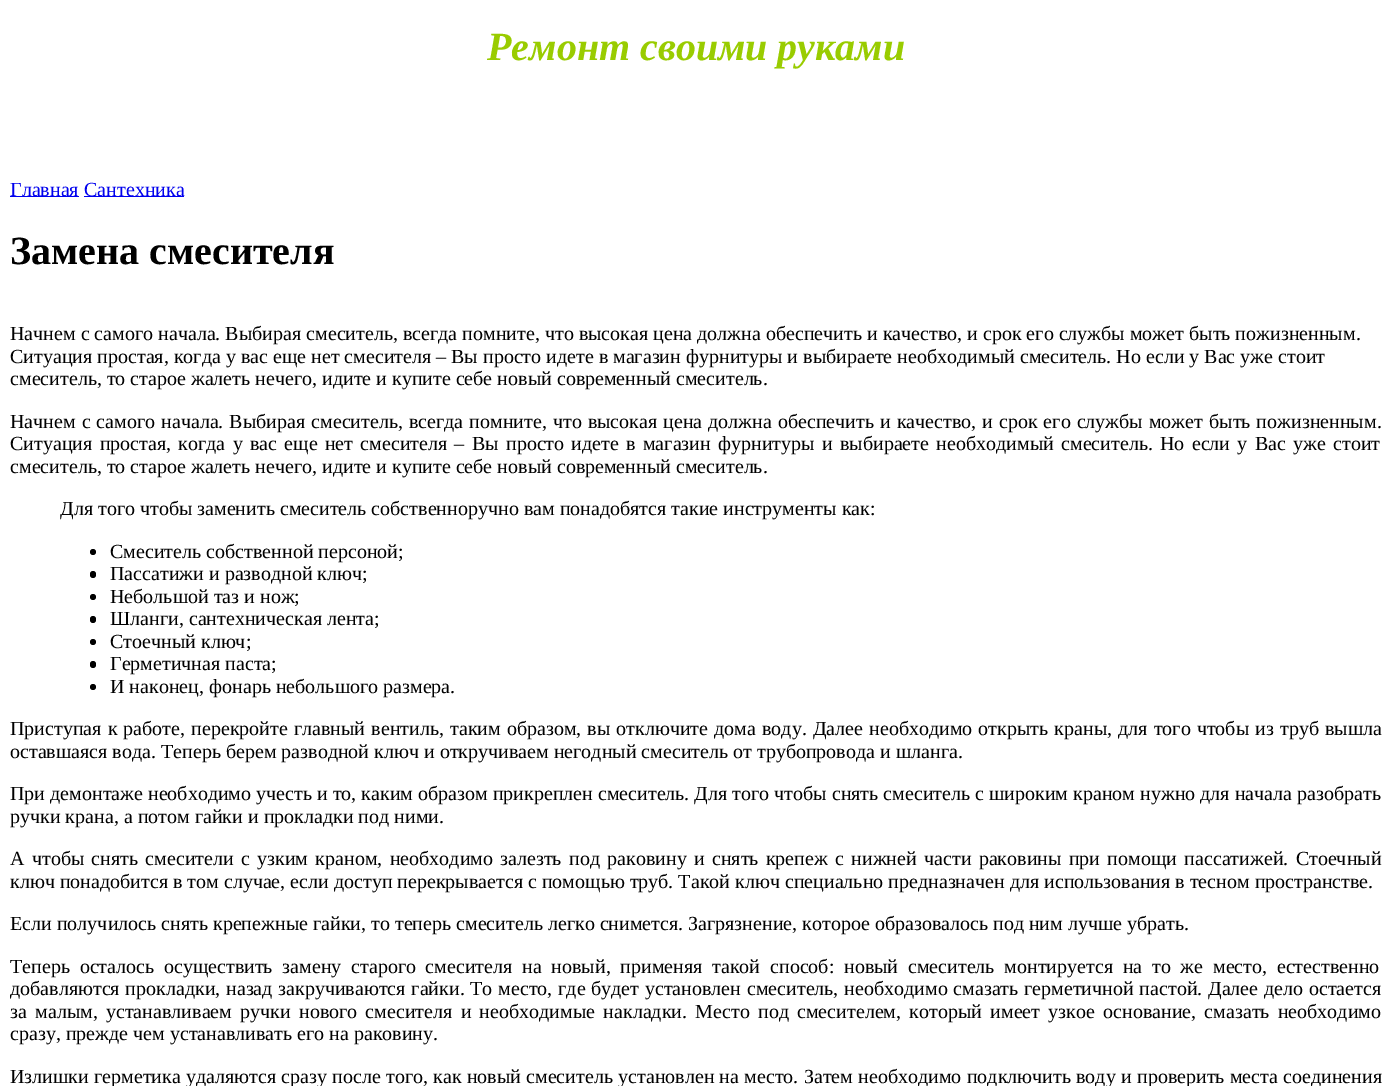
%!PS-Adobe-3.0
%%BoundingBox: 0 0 1391 1086
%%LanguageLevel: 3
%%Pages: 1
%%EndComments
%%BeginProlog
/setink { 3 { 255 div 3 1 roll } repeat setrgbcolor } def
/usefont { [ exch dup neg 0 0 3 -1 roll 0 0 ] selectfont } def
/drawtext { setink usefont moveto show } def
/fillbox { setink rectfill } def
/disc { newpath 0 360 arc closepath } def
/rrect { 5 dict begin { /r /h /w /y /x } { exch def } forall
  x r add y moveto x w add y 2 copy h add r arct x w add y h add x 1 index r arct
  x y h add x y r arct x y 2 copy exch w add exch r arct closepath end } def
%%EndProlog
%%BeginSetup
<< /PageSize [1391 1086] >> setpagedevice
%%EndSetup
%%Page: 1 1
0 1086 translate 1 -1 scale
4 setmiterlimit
0 0 1391 1086 255 255 255 fillbox
(Ремонт своими руками) 487 60 /LiberationSerif-BoldItalic 40 153 204 0 drawtext
10 196 69 1 0 0 238 fillbox
(Главная) 10 196 /LiberationSerif-Regular 20 0 0 238 drawtext
84 196 100 1 0 0 238 fillbox
(Сантехника) 84 196 /LiberationSerif-Regular 20 0 0 238 drawtext
(Замена смесителя) 10 264 /LiberationSerif-Bold 40 0 0 0 drawtext
(Начнем с самого начала. Выбирая смеситель, всегда помните, что высокая цена должна обеспечить и качество, и срок его службы может быть пожизненным.) 10 340 /LiberationSerif-Regular 20 0 0 0 drawtext
(Ситуация простая, когда у вас еще нет смесителя – Вы просто идете в магазин фурнитуры и выбираете необходимый смеситель. Но если у Вас уже стоит) 10 363 /LiberationSerif-Regular 20 0 0 0 drawtext
(смеситель, то старое жалеть нечего, идите и купите себе новый современный смеситель.) 10 385 /LiberationSerif-Regular 20 0 0 0 drawtext
10 428 moveto 1 0 32 (Начнем с самого начала. Выбирая смеситель, всегда помните, что высокая цена должна обеспечить и качество, и срок его службы может быть пожизненным.) widthshow
10 450 moveto 2.3 0 32 (Ситуация простая, когда у вас еще нет смесителя – Вы просто идете в магазин фурнитуры и выбираете необходимый смеситель. Но если у Вас уже стоит) widthshow
(смеситель, то старое жалеть нечего, идите и купите себе новый современный смеситель.) 10 473 /LiberationSerif-Regular 20 0 0 0 drawtext
(Для того чтобы заменить смеситель собственноручно вам понадобятся такие инструменты как:) 60 515 /LiberationSerif-Regular 20 0 0 0 drawtext
93 552 3 disc fill
(Смеситель собственной персоной;) 110 558 /LiberationSerif-Regular 20 0 0 0 drawtext
90 571 6 7 3 rrect fill
(Пассатижи и разводной ключ;) 110 580 /LiberationSerif-Regular 20 0 0 0 drawtext
93 597 3 disc fill
(Небольшой таз и нож;) 110 603 /LiberationSerif-Regular 20 0 0 0 drawtext
90 616 6 7 3 rrect fill
(Шланги, сантехническая лента;) 110 625 /LiberationSerif-Regular 20 0 0 0 drawtext
93 642 3 disc fill
(Стоечный ключ;) 110 648 /LiberationSerif-Regular 20 0 0 0 drawtext
90 661 6 7 3 rrect fill
(Герметичная паста;) 110 670 /LiberationSerif-Regular 20 0 0 0 drawtext
93 687 3 disc fill
(И наконец, фонарь небольшого размера.) 110 693 /LiberationSerif-Regular 20 0 0 0 drawtext
10 735 moveto 1.1 0 32 (Приступая к работе, перекройте главный вентиль, таким образом, вы отключите дома воду. Далее необходимо открыть краны, для того чтобы из труб вышла) widthshow
(оставшаяся вода. Теперь берем разводной ключ и откручиваем негодный смеситель от трубопровода и шланга.) 10 758 /LiberationSerif-Regular 20 0 0 0 drawtext
(При демонтаже необходимо учесть и то, каким образом прикреплен смеситель. Для того чтобы снять смеситель с широким краном нужно для начала разобрать) 10 800 /LiberationSerif-Regular 20 0 0 0 drawtext
(ручки крана, а потом гайки и прокладки под ними.) 10 823 /LiberationSerif-Regular 20 0 0 0 drawtext
10 865 moveto 2.3 0 32 (А чтобы снять смесители с узким краном, необходимо залезть под раковину и снять крепеж с нижней части раковины при помощи пассатижей. Стоечный) widthshow
(ключ понадобится в том случае, если доступ перекрывается с помощью труб. Такой ключ специально предназначен для использования в тесном пространстве.) 10 888 /LiberationSerif-Regular 20 0 0 0 drawtext
(Если получилось снять крепежные гайки, то теперь смеситель легко снимется. Загрязнение, которое образовалось под ним лучше убрать.) 10 930 /LiberationSerif-Regular 20 0 0 0 drawtext
10 973 moveto 4.75 0 32 (Теперь осталось осуществить замену старого смесителя на новый, применяя такой способ: новый смеситель монтируется на то же место, естественно) widthshow
10 995 moveto 0.75 0 32 (добавляются прокладки, назад закручиваются гайки. То место, где будет установлен смеситель, необходимо смазать герметичной пастой. Далее дело остается) widthshow
10 1018 moveto 3.25 0 32 (за малым, устанавливаем ручки нового смесителя и необходимые накладки. Место под смесителем, который имеет узкое основание, смазать необходимо) widthshow
(сразу, прежде чем устанавливать его на раковину.) 10 1040 /LiberationSerif-Regular 20 0 0 0 drawtext
10 1083 moveto 0.25 0 32 (Излишки герметика удаляются сразу после того, как новый смеситель установлен на место. Затем необходимо подключить воду и проверить места соединения) widthshow
showpage
%%EOF
